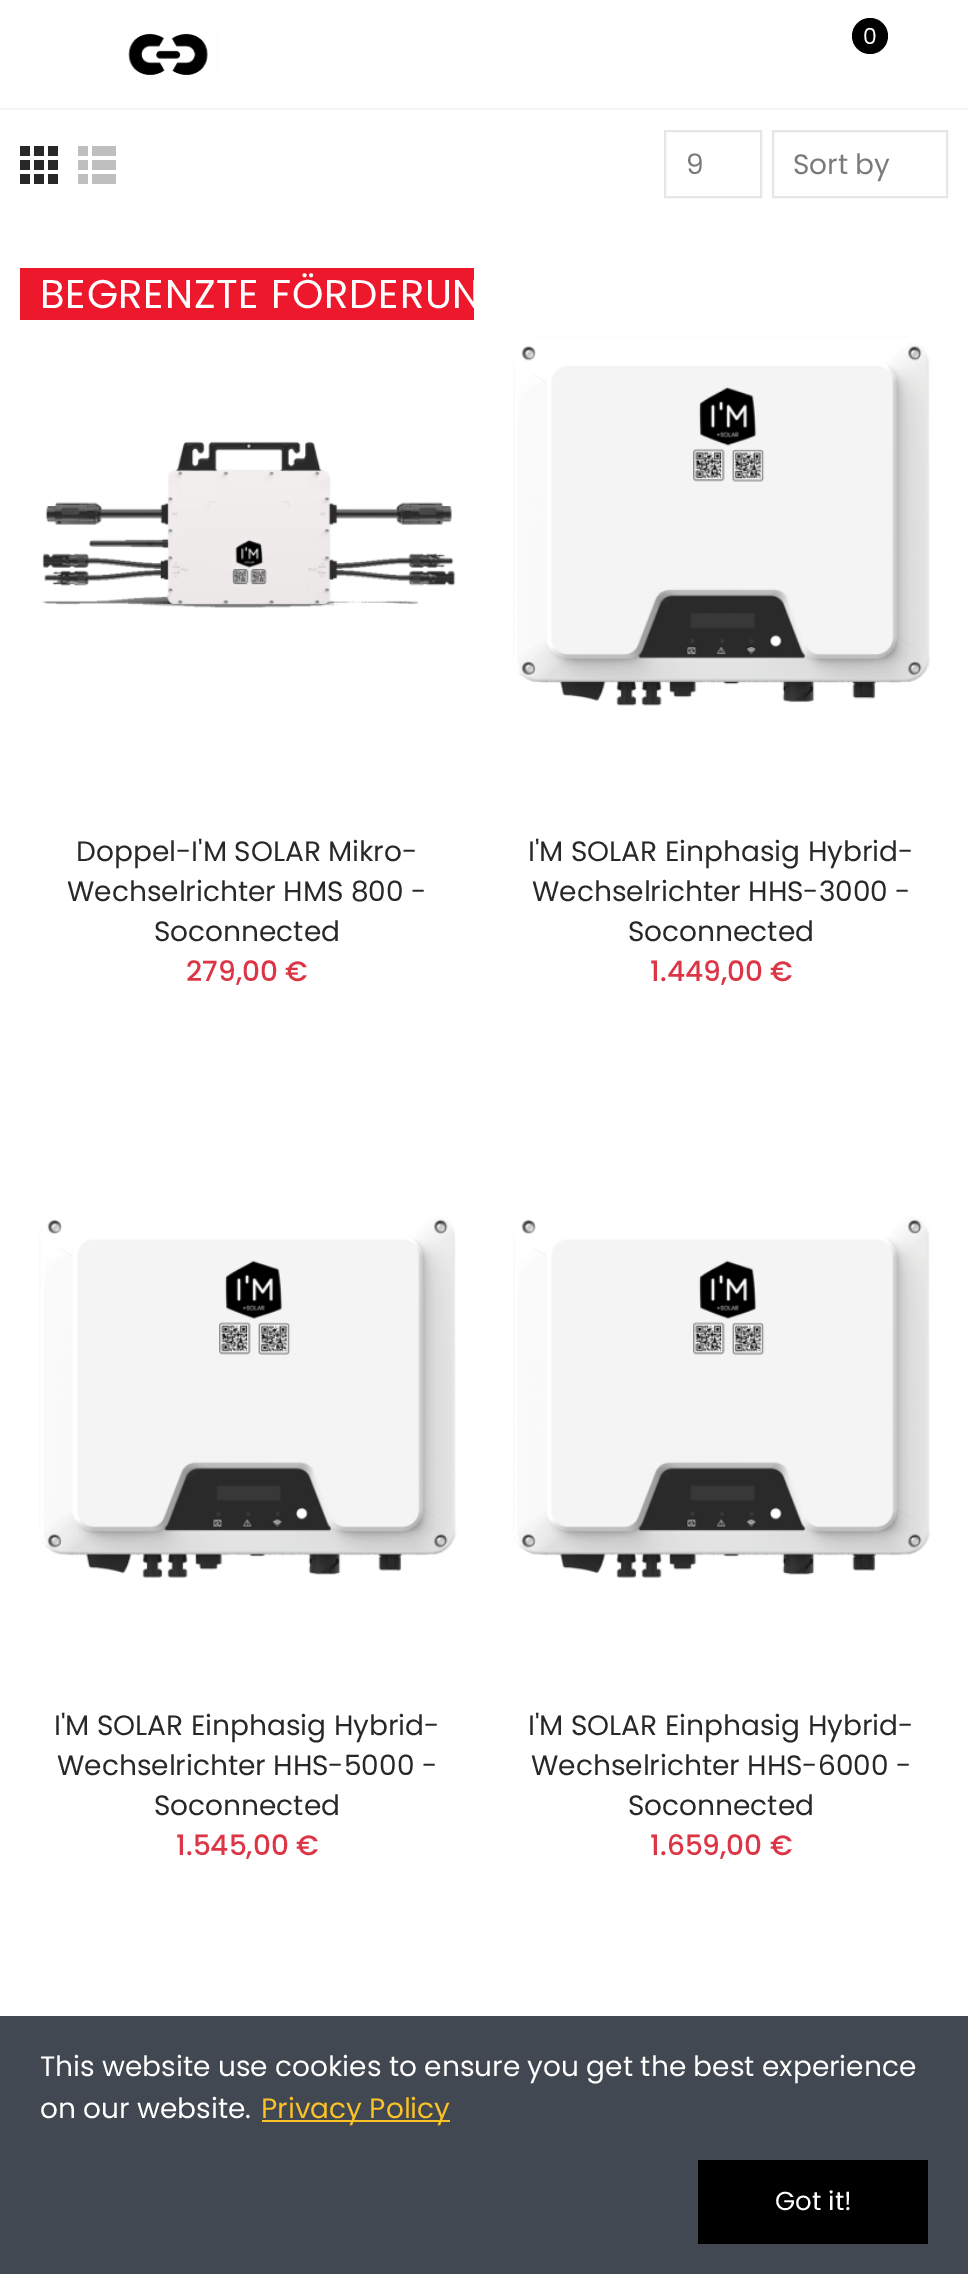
%!PS-Adobe-3.0
%%BoundingBox: 0 0 968 2274
%%LanguageLevel: 3
%%Pages: 1
%%EndComments
%%BeginProlog
/setink { 3 { 255 div 3 1 roll } repeat setrgbcolor } def
/usefont { [ exch dup neg 0 0 3 -1 roll 0 0 ] selectfont } def
/drawtext { setink usefont moveto show } def
/fillbox { setink rectfill } def
/disc { newpath 0 360 arc closepath } def
/drawimage { 5 dict begin { /h /w /y /x /name } { exch def } forall
  gsave x y translate w h scale
  w h 8 [w 0 0 h 0 0] name (r) file false 3 colorimage grestore end } def
%%EndProlog
%%BeginSetup
<< /PageSize [968 2274] >> setpagedevice
%%EndSetup
%%Page: 1 1
0 2274 translate 1 -1 scale
4 setmiterlimit
0 0 968 2274 255 255 255 fillbox
0 108 968 2 245 245 245 fillbox
(assets/img1.rgb) 128 33 90 43 drawimage
0 0 0 setink
870 36 18 disc fill
(0) 863 44 /Poppins-Regular 22 255 255 255 drawtext
(assets/img2.rgb) 20 146 38 38 drawimage
78 146 10 10 191 191 191 fillbox
92 146 24 10 191 191 191 fillbox
78 160 10 10 191 191 191 fillbox
92 160 24 10 191 191 191 fillbox
78 174 10 10 191 191 191 fillbox
92 174 24 10 191 191 191 fillbox
230 230 230 setink
2 setlinewidth
665 131 96 66 rectstroke
(9) 686 174 /Poppins-Regular 28 122 122 122 drawtext
230 230 230 setink
773 131 174 66 rectstroke
(Sort by) 793 174 /Poppins-Regular 28 122 122 122 drawtext
20 268 454 52 238 24 44 fillbox
gsave
20 238 454 564 rectclip
/Poppins-Regular 40 usefont
255 255 255 setink
40 308 moveto 0.75 0 (BEGRENZTE FÖRDERUN) ashow
grestore
(assets/img3.rgb) 42 441 414 167 drawimage
(Doppel-I'M SOLAR Mikro-) 76 861 /Poppins-Regular 28 40 40 40 drawtext
(Wechselrichter HMS 800 -) 67 901 /Poppins-Regular 28 40 40 40 drawtext
(Soconnected) 154 941 /Poppins-Regular 28 40 40 40 drawtext
(279,00 €) 186 981 /Poppins-Medium 28 220 53 69 drawtext
(assets/img4.rgb) 513 336 418 370 drawimage
(I'M SOLAR Einphasig Hybrid-) 528 861 /Poppins-Regular 28 40 40 40 drawtext
(Wechselrichter HHS-3000 -) 532 901 /Poppins-Regular 28 40 40 40 drawtext
(Soconnected) 628 941 /Poppins-Regular 28 40 40 40 drawtext
(1.449,00 €) 650 981 /Poppins-Medium 28 220 53 69 drawtext
(assets/img5.rgb) 39 1210 418 368 drawimage
(I'M SOLAR Einphasig Hybrid-) 54 1735 /Poppins-Regular 28 40 40 40 drawtext
(Wechselrichter HHS-5000 -) 57 1775 /Poppins-Regular 28 40 40 40 drawtext
(Soconnected) 154 1815 /Poppins-Regular 28 40 40 40 drawtext
(1.545,00 €) 176 1855 /Poppins-Medium 28 220 53 69 drawtext
(assets/img5.rgb) 513 1210 418 368 drawimage
(I'M SOLAR Einphasig Hybrid-) 528 1735 /Poppins-Regular 28 40 40 40 drawtext
(Wechselrichter HHS-6000 -) 531 1775 /Poppins-Regular 28 40 40 40 drawtext
(Soconnected) 628 1815 /Poppins-Regular 28 40 40 40 drawtext
(1.659,00 €) 650 1855 /Poppins-Medium 28 220 53 69 drawtext
0 2016 968 258 66 72 81 fillbox
(This website use cookies to ensure you get the best experience) 40 2076 /Poppins-Regular 28 255 255 255 drawtext
(on our website.) 40 2118 /Poppins-Regular 28 255 255 255 drawtext
262 2120 188 2 251 194 39 fillbox
(Privacy Policy) 261 2118 /Poppins-Regular 28 251 194 39 drawtext
698 2160 230 84 0 0 0 fillbox
(Got it!) 775 2210 /Poppins-Regular 26 255 255 255 drawtext
showpage
%%EOF
